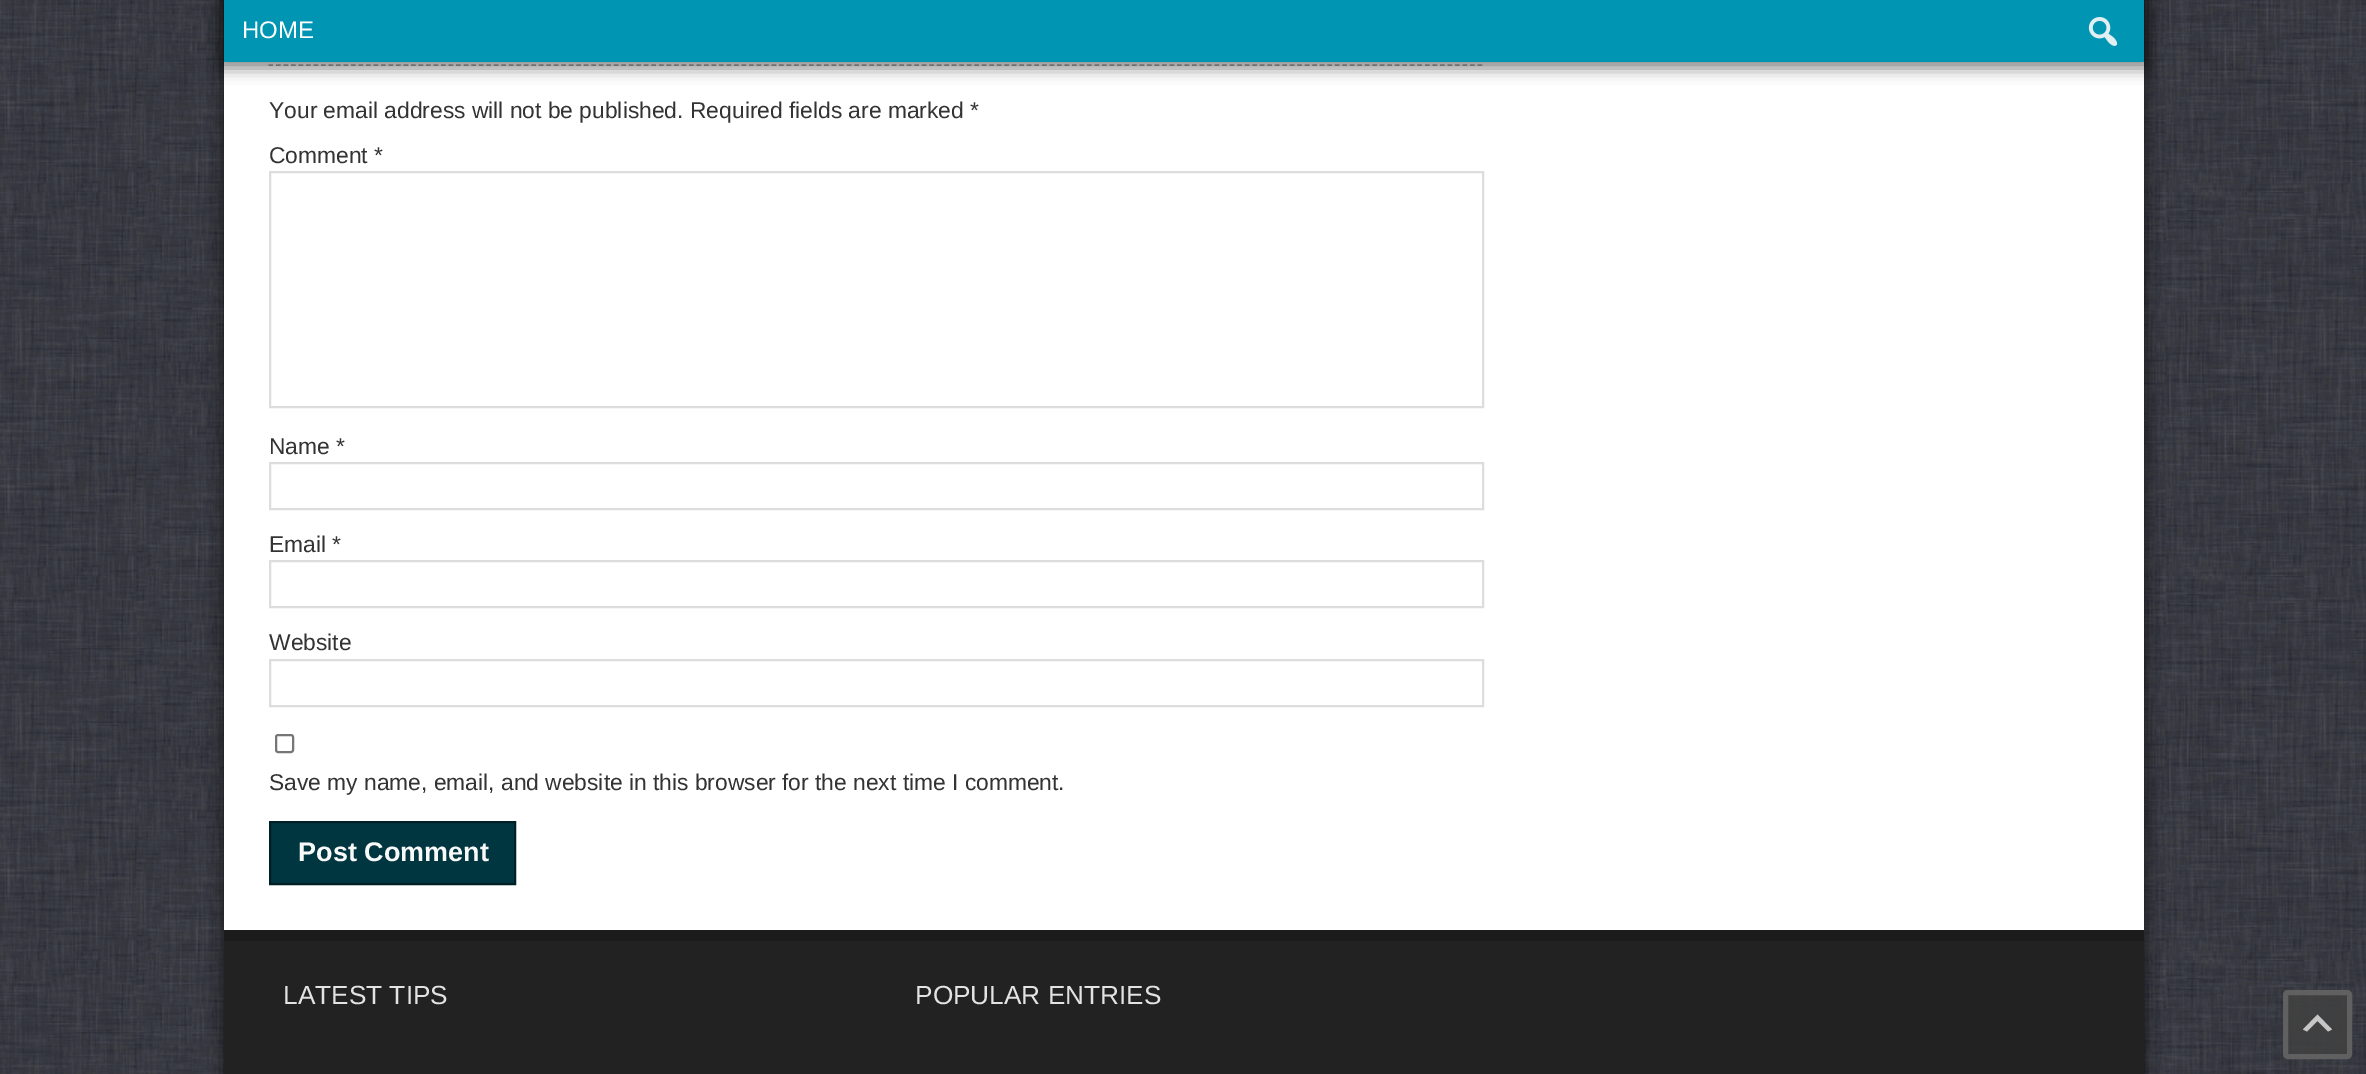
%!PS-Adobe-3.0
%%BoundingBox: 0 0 2366 1074
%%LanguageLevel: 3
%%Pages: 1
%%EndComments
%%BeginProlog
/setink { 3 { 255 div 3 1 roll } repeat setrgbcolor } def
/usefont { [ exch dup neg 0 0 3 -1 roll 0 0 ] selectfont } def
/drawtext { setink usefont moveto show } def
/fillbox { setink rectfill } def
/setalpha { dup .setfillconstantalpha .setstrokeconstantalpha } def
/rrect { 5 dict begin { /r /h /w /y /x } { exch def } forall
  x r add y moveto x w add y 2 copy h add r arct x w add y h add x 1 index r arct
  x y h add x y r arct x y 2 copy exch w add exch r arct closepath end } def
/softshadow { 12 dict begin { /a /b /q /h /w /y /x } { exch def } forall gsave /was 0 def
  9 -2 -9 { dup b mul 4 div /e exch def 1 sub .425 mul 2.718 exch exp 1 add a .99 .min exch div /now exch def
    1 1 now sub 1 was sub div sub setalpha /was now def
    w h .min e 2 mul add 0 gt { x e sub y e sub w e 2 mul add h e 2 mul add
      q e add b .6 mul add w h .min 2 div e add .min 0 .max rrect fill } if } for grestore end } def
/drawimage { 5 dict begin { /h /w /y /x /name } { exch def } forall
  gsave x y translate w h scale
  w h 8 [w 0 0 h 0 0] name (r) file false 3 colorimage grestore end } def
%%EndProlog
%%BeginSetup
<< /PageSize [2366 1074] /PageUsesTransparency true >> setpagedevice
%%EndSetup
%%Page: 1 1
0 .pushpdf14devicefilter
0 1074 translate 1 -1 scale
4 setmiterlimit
0 0 2366 1074 255 255 255 fillbox
(assets/img1.rgb) 0 0 2366 1074 drawimage
2 2 2 setink
221 -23 1926 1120 0 7.5 0.5 softshadow
224 62 1920 868 255 255 255 fillbox
170 170 170 setink
1.5 setlinewidth
[4.5 3.01] 0 setdash
268.5 65 moveto 1483.5 65 lineto stroke
2 2 2 setink
221 0 1926 68 0 7.5 0.5 softshadow
224 0 1920 62 0 150 179 fillbox
(HOME) 242 38 /LiberationSans-Regular 24 255 255 255 drawtext
(assets/img2.rgb) 2088 17 30 29 drawimage
(Your email address will not be published.) 269 118 /LiberationSans-Regular 22.8 51 51 51 drawtext
(Required fields are marked *) 690 118 /LiberationSans-Regular 22.8 51 51 51 drawtext
(Comment *) 269 163 /LiberationSans-Regular 22.8 51 51 51 drawtext
221 221 221 setink
2 setlinewidth
[] 0 setdash
270 172 1213 235 rectstroke
(Name *) 269 454 /LiberationSans-Regular 22.8 51 51 51 drawtext
221 221 221 setink
270 463 1213 46 rectstroke
(Email *) 269 552 /LiberationSans-Regular 22.8 51 51 51 drawtext
221 221 221 setink
270 561 1213 46 rectstroke
(Website) 269 650 /LiberationSans-Regular 22.8 51 51 51 drawtext
221 221 221 setink
270 660 1213 46 rectstroke
118 118 118 setink
276 735 17 17 2 rrect stroke
(Save my name, email, and website in this browser for the next time I comment.) 269 790 /LiberationSans-Regular 22.8 51 51 51 drawtext
0 54 64 setink
270 822 moveto 515 822 lineto 515 884 lineto 270 884 lineto closepath gsave fill grestore
0 32 38 setink
stroke
(Post Comment) 298 861 /LiberationSans-Bold 27 249 249 249 drawtext
224 941 1920 133 34 34 34 fillbox
224 930 1920 11 27 27 27 fillbox
(LATEST TIPS) 283 1004 /LiberationSans-Regular 26.25 227 227 227 drawtext
(POPULAR ENTRIES) 915 1004 /LiberationSans-Regular 26.25 227 227 227 drawtext
0.85 setalpha
65 65 65 setink
2283 990 69 69 5 rrect fill
0.9 setalpha
100 100 100 setink
5 setlinewidth
2285.5 992.5 64 64 2.5 rrect stroke
1 setalpha
198 198 198 setink
2328 1031.5 moveto 2317.5 1021 lineto 2307 1031.5 lineto 2303 1029.5 lineto 2317.5 1014.5 lineto 2332 1029.5 lineto closepath fill
.poppdf14devicefilter showpage
%%EOF
